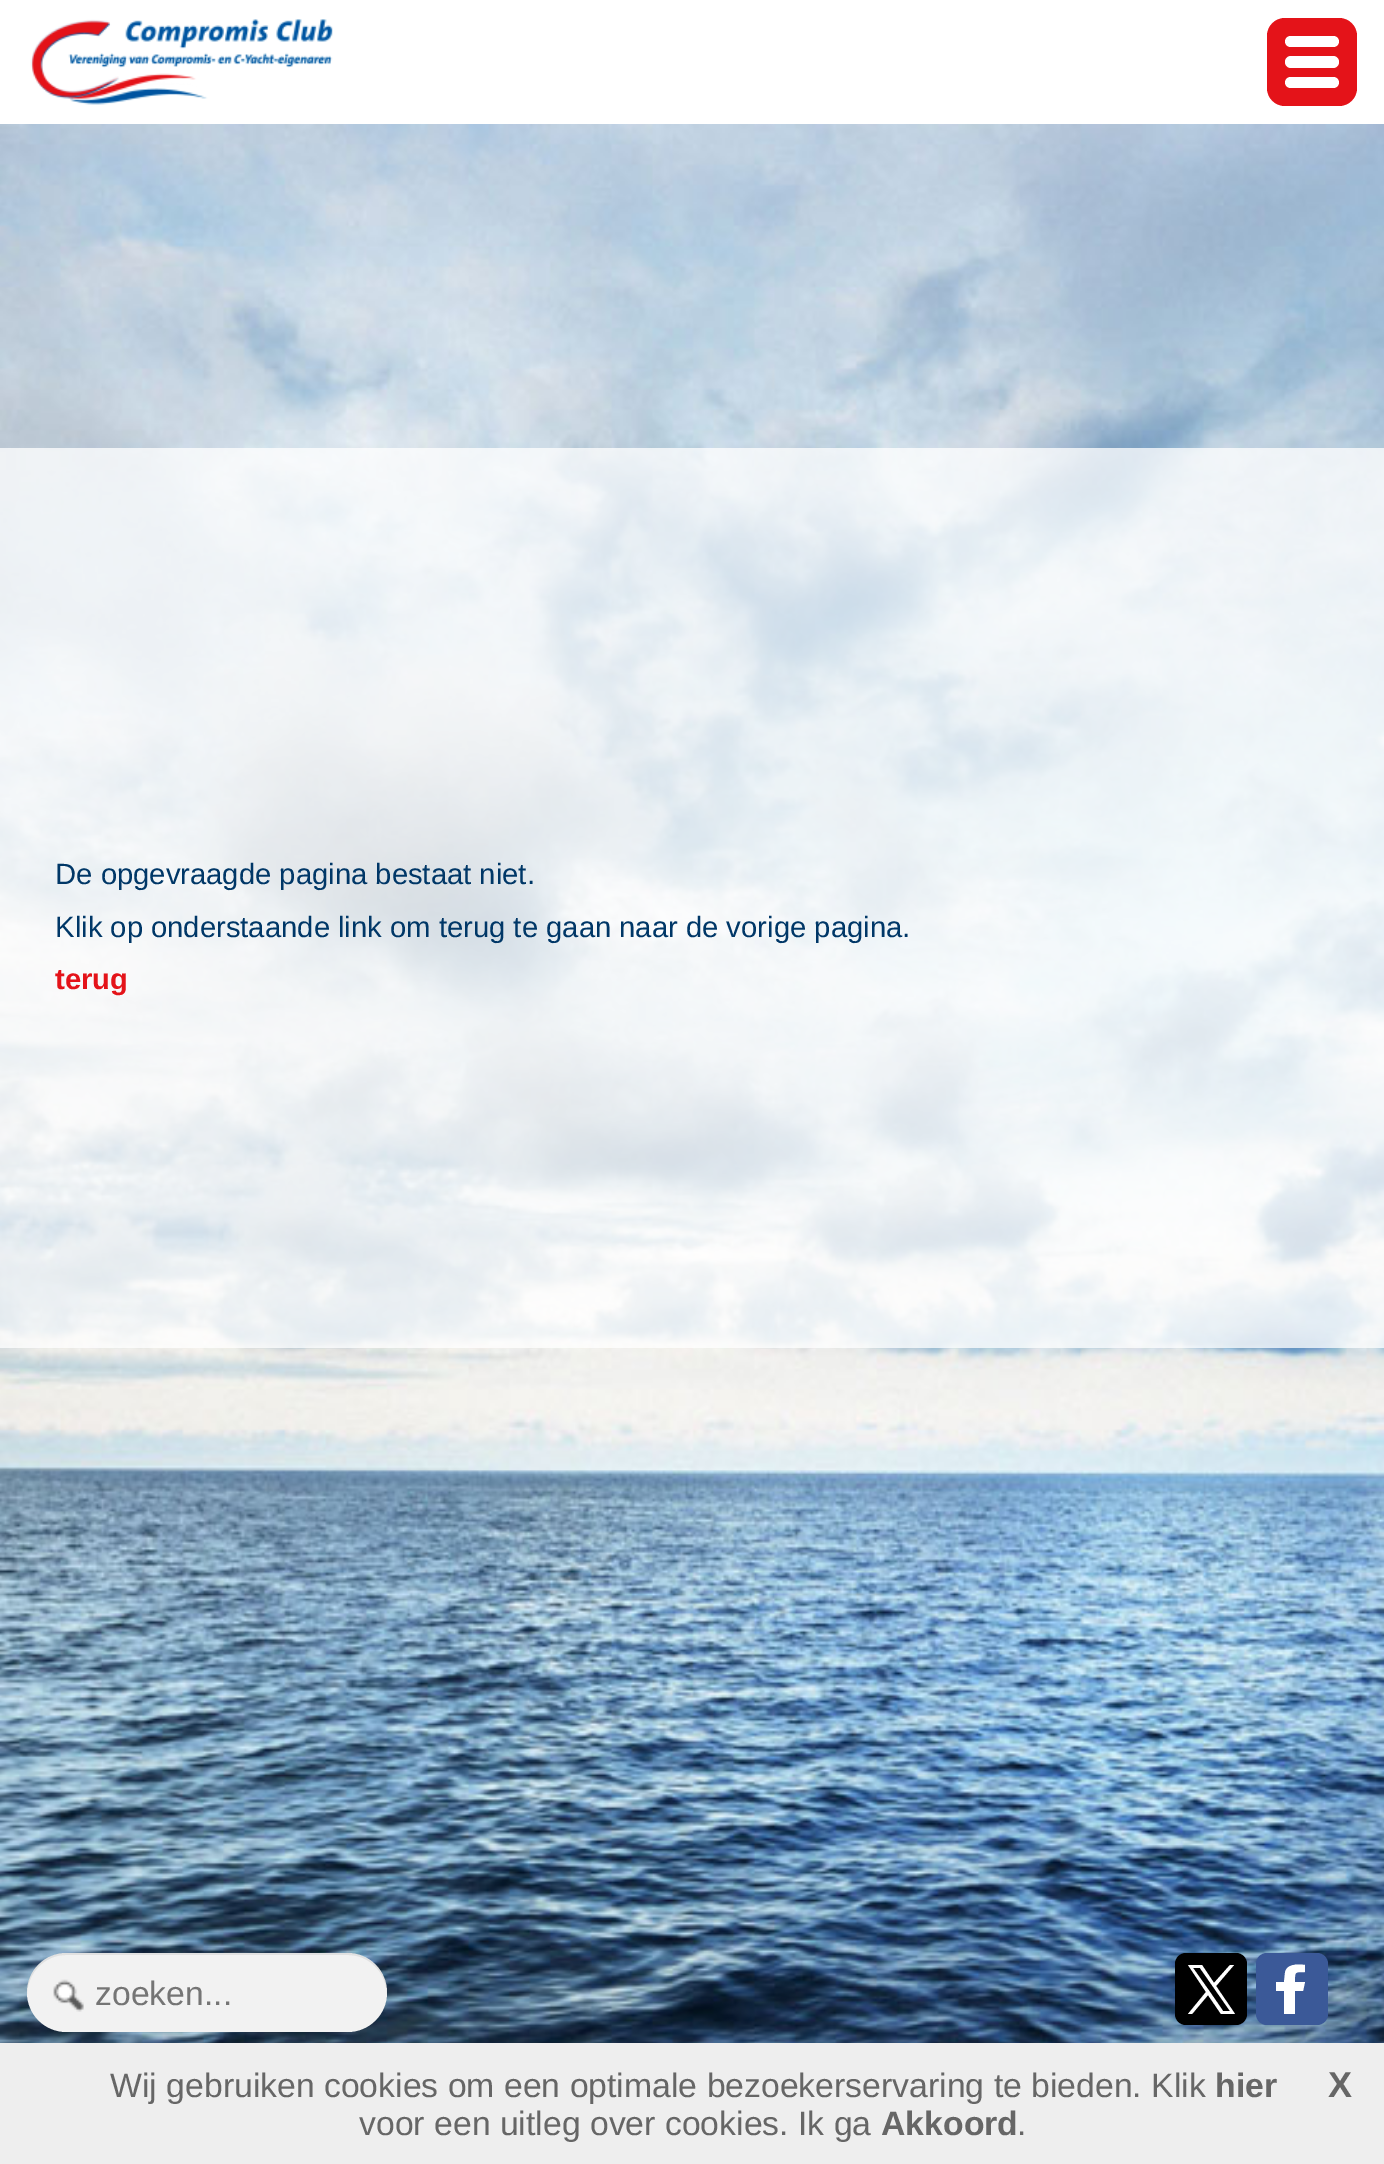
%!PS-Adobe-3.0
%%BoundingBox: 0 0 1384 2164
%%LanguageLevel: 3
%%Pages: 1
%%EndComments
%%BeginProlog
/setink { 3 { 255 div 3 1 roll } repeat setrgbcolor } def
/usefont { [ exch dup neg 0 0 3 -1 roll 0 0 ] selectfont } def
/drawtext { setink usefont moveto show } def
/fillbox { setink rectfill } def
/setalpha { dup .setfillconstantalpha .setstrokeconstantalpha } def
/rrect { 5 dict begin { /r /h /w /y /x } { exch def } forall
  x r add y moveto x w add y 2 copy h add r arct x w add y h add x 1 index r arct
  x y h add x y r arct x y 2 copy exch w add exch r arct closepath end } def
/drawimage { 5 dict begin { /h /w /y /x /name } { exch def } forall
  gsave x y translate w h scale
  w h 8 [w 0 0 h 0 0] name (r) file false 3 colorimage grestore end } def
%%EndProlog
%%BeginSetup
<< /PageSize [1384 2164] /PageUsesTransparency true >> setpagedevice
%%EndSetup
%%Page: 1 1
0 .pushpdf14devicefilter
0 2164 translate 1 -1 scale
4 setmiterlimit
0 0 1384 2164 255 255 255 fillbox
(assets/img1.rgb) 30 19 303 86 drawimage
228 19 25 setink
1267 18 90 88 18 rrect fill
255 255 255 setink
1285 36 54 11 5.5 rrect fill
1285 56 54 12 6 rrect fill
1285 77 54 11 5.5 rrect fill
(assets/img2.rgb) 0 124 1384 1919 drawimage
0.77 setalpha
0 448 1384 900 255 255 255 fillbox
1 setalpha
(De opgevraagde pagina bestaat niet.) 55 884 /LiberationSans-Regular 29.25 0 55 103 drawtext
(Klik op onderstaande link om terug te gaan naar de vorige pagina.) 55 937 /LiberationSans-Regular 29.25 0 55 103 drawtext
(terug) 55 989 /LiberationSans-Bold 29.25 228 19 25 drawtext
242 242 242 setink
27 1953 360 79 39.5 rrect fill
(assets/img3.rgb) 53 1979 31 33 drawimage
0.07 setalpha
0 0 0 setink
66 1955 moveto 348 1955 lineto 369 1955 386 1972 387 1994 curveto 387 1992 lineto 387 1971 369 1953 348 1953 curveto 66 1953 lineto 45 1953 27 1971 27 1992 curveto 27 1994 lineto 28 1972 45 1955 66 1955 curveto closepath fill
1 setalpha
(zoeken...) 95 2005 /LiberationSans-Regular 33.75 117 117 117 drawtext
0 0 0 setink
1175 1953 72 72 11 rrect fill
255 255 255 setink
1216 1986 moveto 1234 1965 lineto 1230 1965 lineto 1214 1983 lineto 1202 1965 lineto 1188 1965 lineto 1206 1992 lineto 1188 2014 lineto 1192 2014 lineto 1208 1995 lineto 1221 2014 lineto 1235 2014 lineto closepath 1210 1992 moveto 1193 1968 lineto 1200 1968 lineto 1230 2011 lineto 1223 2011 lineto closepath fill
59 89 152 setink
1256 1953 72 72 11 rrect fill
255 255 255 setink
1305 1965 moveto 1297 1964 1286 1964 1285 1973 curveto 1284 1982 lineto 1276 1982 lineto 1276 1991 lineto 1284 1991 lineto 1284 2014 lineto 1295 2014 lineto 1295 1991 lineto 1303 1991 lineto 1305 1982 lineto 1295 1982 lineto 1295 1972 1294 1972 1305 1972 curveto closepath eofill
0 2043 1384 121 238 238 238 fillbox
(Wij gebruiken cookies om een optimale bezoekerservaring te bieden. Klik) 110 2097 /LiberationSans-Regular 33.75 102 102 102 drawtext
(hier) 1215 2097 /LiberationSans-Bold 33.75 102 102 102 drawtext
(voor een uitleg over cookies. Ik ga) 359 2135 /LiberationSans-Regular 33.75 102 102 102 drawtext
(Akkoord) 881 2135 /LiberationSans-Bold 33.75 102 102 102 drawtext
(.) 1017 2135 /LiberationSans-Regular 33.75 102 102 102 drawtext
(X) 1328 2097 /LiberationSans-Bold 36 102 102 102 drawtext
.poppdf14devicefilter showpage
%%EOF
